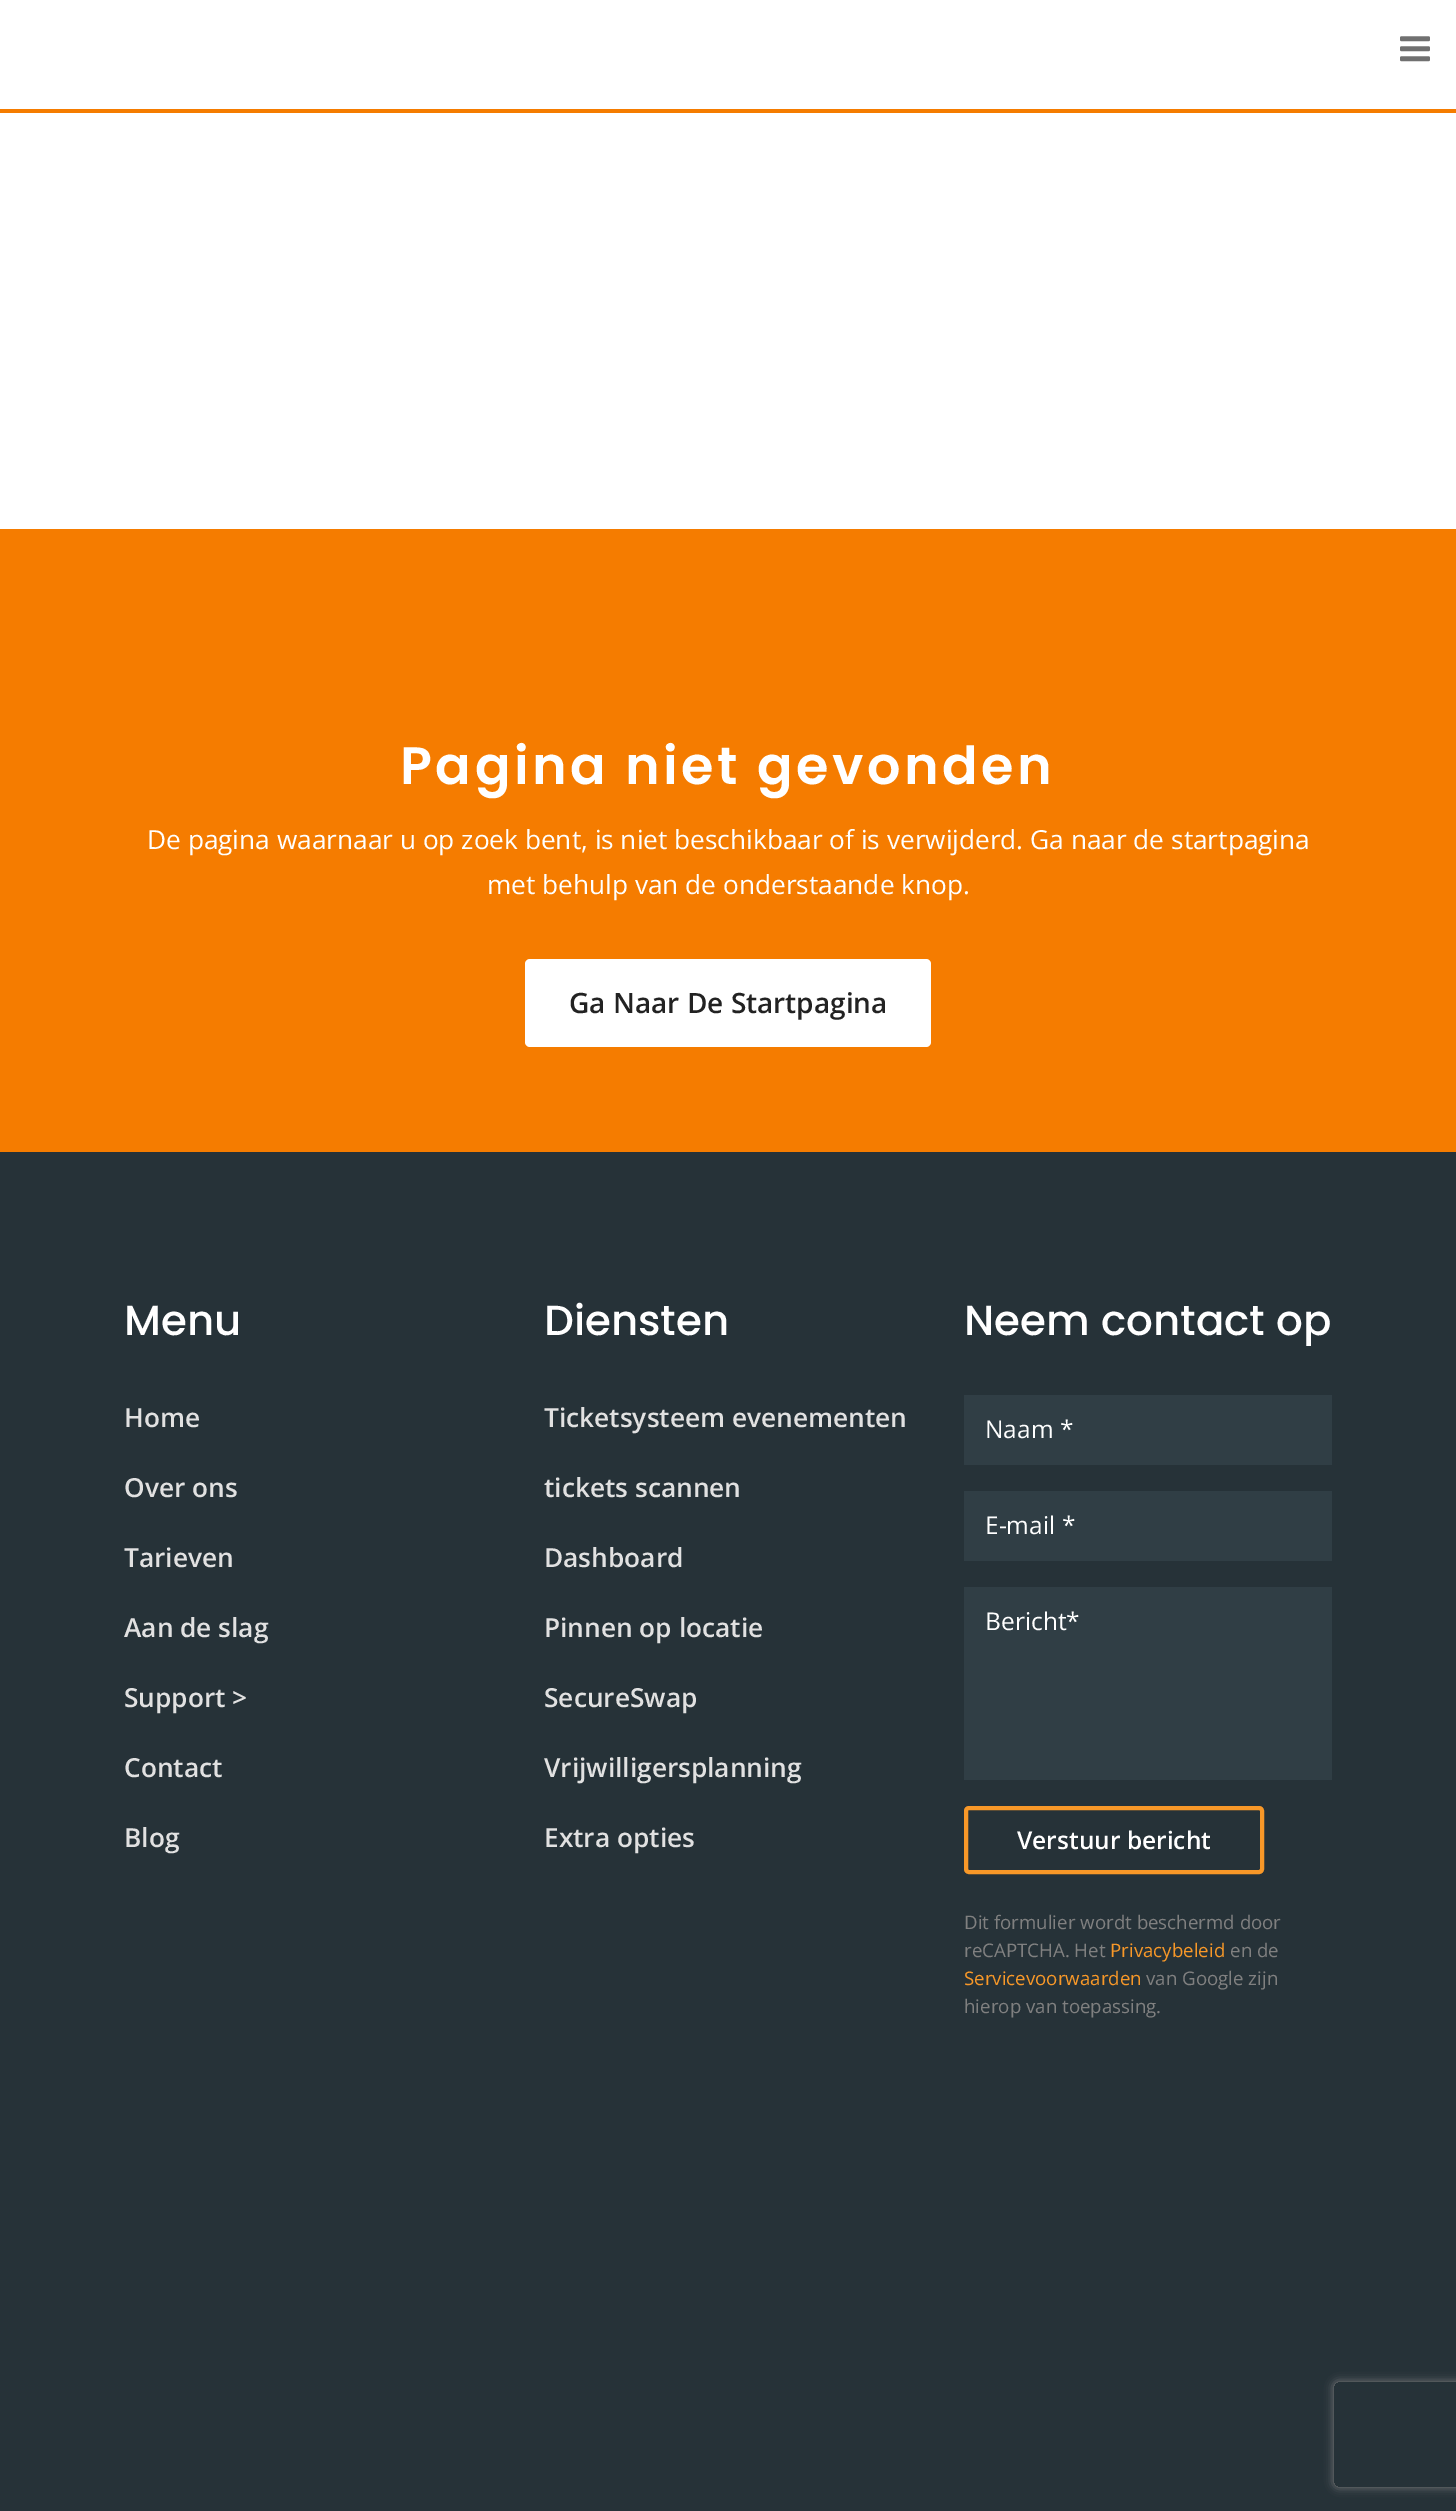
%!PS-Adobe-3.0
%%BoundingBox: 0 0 1456 2511
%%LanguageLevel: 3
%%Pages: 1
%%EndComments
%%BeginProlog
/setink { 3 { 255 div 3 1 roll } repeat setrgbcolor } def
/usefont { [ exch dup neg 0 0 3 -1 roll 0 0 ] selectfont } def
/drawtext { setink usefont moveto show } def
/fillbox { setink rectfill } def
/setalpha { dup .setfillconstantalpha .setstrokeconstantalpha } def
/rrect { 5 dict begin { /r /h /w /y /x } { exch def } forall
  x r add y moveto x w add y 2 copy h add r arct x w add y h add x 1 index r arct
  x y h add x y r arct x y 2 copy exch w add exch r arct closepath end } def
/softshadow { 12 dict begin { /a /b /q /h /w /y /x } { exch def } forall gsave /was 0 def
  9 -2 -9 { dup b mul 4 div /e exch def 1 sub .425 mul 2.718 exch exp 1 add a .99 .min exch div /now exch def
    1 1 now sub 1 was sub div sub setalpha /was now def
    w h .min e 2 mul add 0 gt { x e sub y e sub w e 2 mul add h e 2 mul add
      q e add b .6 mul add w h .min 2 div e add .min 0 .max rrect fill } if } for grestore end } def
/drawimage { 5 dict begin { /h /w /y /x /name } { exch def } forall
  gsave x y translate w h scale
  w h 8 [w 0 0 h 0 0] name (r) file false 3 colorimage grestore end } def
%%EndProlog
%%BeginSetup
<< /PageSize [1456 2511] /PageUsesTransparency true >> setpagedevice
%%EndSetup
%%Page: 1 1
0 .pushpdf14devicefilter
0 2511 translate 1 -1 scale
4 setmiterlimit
0 0 1456 2511 255 255 255 fillbox
0 109 1456 4 245 124 0 fillbox
(assets/img1.rgb) 1400 36 30 26 drawimage
0 529 1456 623 245 124 0 fillbox
/Poppins-SemiBold 52.5 usefont
255 255 255 setink
400 784 moveto 3.5 0 (Pagina niet gevonden) ashow
(De pagina waarnaar u op zoek bent, is niet beschikbaar of is verwijderd. Ga naar de startpagina) 147 849 /OpenSans-Regular 26.25 255 255 255 drawtext
(met behulp van de onderstaande knop.) 487 894 /OpenSans-Regular 26.25 255 255 255 drawtext
525 959 406 88 5 rrect fill
(Ga Naar De Startpagina) 569 1013 /OpenSans-SemiBold 28 34 34 34 drawtext
0 1152 1456 1359 38 50 56 fillbox
(Menu) 124 1335 /Poppins-Medium 42 255 255 255 drawtext
(Home) 124 1427 /OpenSans-SemiBold 26.25 225 225 225 drawtext
(Over ons) 124 1497 /OpenSans-SemiBold 26.25 225 225 225 drawtext
(Tarieven) 124 1567 /OpenSans-SemiBold 26.25 225 225 225 drawtext
(Aan de slag) 124 1637 /OpenSans-SemiBold 26.25 225 225 225 drawtext
(Support >) 124 1707 /OpenSans-SemiBold 26.25 225 225 225 drawtext
(Contact) 124 1777 /OpenSans-SemiBold 26.25 225 225 225 drawtext
(Blog) 124 1847 /OpenSans-SemiBold 26.25 225 225 225 drawtext
(Diensten) 544 1335 /Poppins-Medium 42 255 255 255 drawtext
(Ticketsysteem evenementen) 544 1427 /OpenSans-SemiBold 26.25 225 225 225 drawtext
(tickets scannen) 544 1497 /OpenSans-SemiBold 26.25 225 225 225 drawtext
(Dashboard) 544 1567 /OpenSans-SemiBold 26.25 225 225 225 drawtext
(Pinnen op locatie) 544 1637 /OpenSans-SemiBold 26.25 225 225 225 drawtext
(SecureSwap) 544 1707 /OpenSans-SemiBold 26.25 225 225 225 drawtext
(Vrijwilligersplanning) 544 1777 /OpenSans-SemiBold 26.25 225 225 225 drawtext
(Extra opties) 544 1847 /OpenSans-SemiBold 26.25 225 225 225 drawtext
(Neem contact op) 964 1335 /Poppins-Medium 42 255 255 255 drawtext
964 1395 368 70 48 62 69 fillbox
(Naam *) 985 1438 /OpenSans-Regular 24.5 255 255 255 drawtext
964 1491 368 70 48 62 69 fillbox
(E-mail *) 985 1534 /OpenSans-Regular 24.5 255 255 255 drawtext
964 1587 368 193 48 62 69 fillbox
(Bericht*) 985 1630 /OpenSans-Regular 24.5 255 255 255 drawtext
248 152 40 setink
4 setlinewidth
966 1808 296 64 3 rrect stroke
(Verstuur bericht) 1017 1849 /OpenSans-SemiBold 24.5 255 255 255 drawtext
(Dit formulier wordt beschermd door) 964 1929 /OpenSans-Regular 18.7 128 128 128 drawtext
(reCAPTCHA. Het) 964 1957 /OpenSans-Regular 18.7 128 128 128 drawtext
(Privacybeleid) 1110 1957 /OpenSans-Regular 18.7 248 152 40 drawtext
(en de) 1230 1957 /OpenSans-Regular 18.7 128 128 128 drawtext
(Servicevoorwaarden) 964 1985 /OpenSans-Regular 18.7 248 152 40 drawtext
(van Google zijn) 1146 1985 /OpenSans-Regular 18.7 128 128 128 drawtext
(hierop van toepassing.) 964 2013 /OpenSans-Regular 18.7 128 128 128 drawtext
gsave
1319 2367 moveto 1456 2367 lineto 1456 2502 lineto 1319 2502 lineto closepath 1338 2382 moveto 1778 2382 lineto 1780 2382 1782 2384 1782 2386 curveto 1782 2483 lineto 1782 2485 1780 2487 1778 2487 curveto 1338 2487 lineto 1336 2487 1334 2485 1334 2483 curveto 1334 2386 lineto 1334 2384 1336 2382 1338 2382 curveto closepath eoclip newpath
1334 2382 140 105 4 4.5 1 softshadow
grestore
.poppdf14devicefilter showpage
%%EOF
